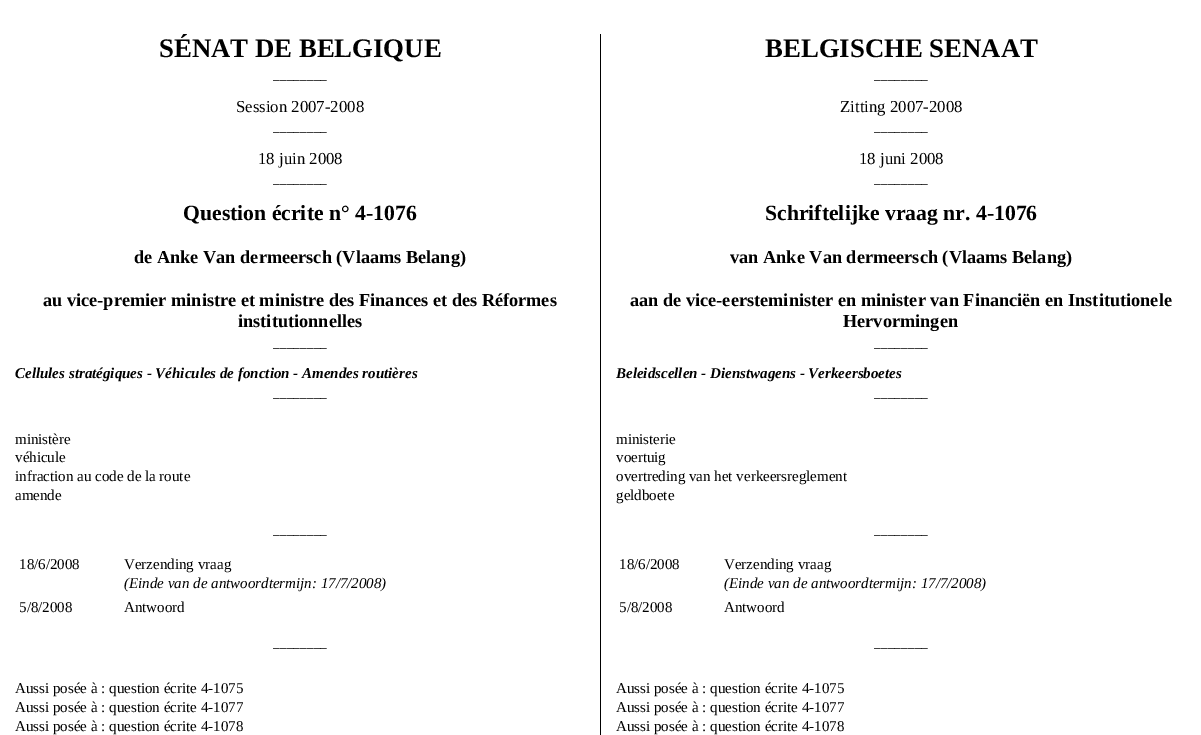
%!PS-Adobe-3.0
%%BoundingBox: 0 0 1201 735
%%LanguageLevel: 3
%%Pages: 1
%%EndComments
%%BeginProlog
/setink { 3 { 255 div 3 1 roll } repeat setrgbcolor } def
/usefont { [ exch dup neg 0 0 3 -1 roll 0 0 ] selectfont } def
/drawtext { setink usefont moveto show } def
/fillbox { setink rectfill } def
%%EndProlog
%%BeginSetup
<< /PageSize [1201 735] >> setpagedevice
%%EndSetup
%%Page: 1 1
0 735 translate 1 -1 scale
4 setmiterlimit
0 0 1201 735 255 255 255 fillbox
600 34 1 701 0 0 0 fillbox
(SÉNAT DE BELGIQUE) 159 57 /LiberationSerif-Bold 26.75 0 0 0 drawtext
(BELGISCHE SENAAT) 765 57 /LiberationSerif-Bold 26.75 0 0 0 drawtext
(________) 273 79 /LiberationSerif-Regular 13.5 0 0 0 drawtext
(________) 874 79 /LiberationSerif-Regular 13.5 0 0 0 drawtext
(Session 2007-2008) 236 112 /LiberationSerif-Regular 16.75 0 0 0 drawtext
(Zitting 2007-2008) 840 112 /LiberationSerif-Regular 16.75 0 0 0 drawtext
(________) 273 131 /LiberationSerif-Regular 13.5 0 0 0 drawtext
(________) 874 131 /LiberationSerif-Regular 13.5 0 0 0 drawtext
(18 juin 2008) 258 164 /LiberationSerif-Regular 16.75 0 0 0 drawtext
(18 juni 2008) 859 164 /LiberationSerif-Regular 16.75 0 0 0 drawtext
(________) 273 183 /LiberationSerif-Regular 13.5 0 0 0 drawtext
(________) 874 183 /LiberationSerif-Regular 13.5 0 0 0 drawtext
(Question écrite n° 4-1076) 183 220 /LiberationSerif-Bold 21.7 0 0 0 drawtext
(Schriftelijke vraag nr. 4-1076) 765 220 /LiberationSerif-Bold 21.7 0 0 0 drawtext
(de Anke Van dermeersch \(Vlaams Belang\)) 134 263 /LiberationSerif-Bold 18.3 0 0 0 drawtext
(van Anke Van dermeersch \(Vlaams Belang\)) 730 263 /LiberationSerif-Bold 18.3 0 0 0 drawtext
(au vice-premier ministre et ministre des Finances et des Réformes) 43 306 /LiberationSerif-Bold 18.3 0 0 0 drawtext
(institutionnelles) 238 327 /LiberationSerif-Bold 18.3 0 0 0 drawtext
(aan de vice-eersteminister en minister van Financiën en Institutionele) 630 306 /LiberationSerif-Bold 18.3 0 0 0 drawtext
(Hervormingen) 843 327 /LiberationSerif-Bold 18.3 0 0 0 drawtext
(________) 273 347 /LiberationSerif-Regular 13.5 0 0 0 drawtext
(________) 874 347 /LiberationSerif-Regular 13.5 0 0 0 drawtext
(Cellules stratégiques - Véhicules de fonction - Amendes routières) 15 378 /LiberationSerif-BoldItalic 15 0 0 0 drawtext
(Beleidscellen - Dienstwagens - Verkeersboetes) 616 378 /LiberationSerif-BoldItalic 15 0 0 0 drawtext
(________) 273 397 /LiberationSerif-Regular 13.5 0 0 0 drawtext
(________) 874 397 /LiberationSerif-Regular 13.5 0 0 0 drawtext
(ministère) 15 444 /LiberationSerif-Regular 15 0 0 0 drawtext
(véhicule) 15 462 /LiberationSerif-Regular 15 0 0 0 drawtext
(infraction au code de la route) 15 481 /LiberationSerif-Regular 15 0 0 0 drawtext
(amende) 15 500 /LiberationSerif-Regular 15 0 0 0 drawtext
(ministerie) 616 444 /LiberationSerif-Regular 15 0 0 0 drawtext
(voertuig) 616 462 /LiberationSerif-Regular 15 0 0 0 drawtext
(overtreding van het verkeersreglement) 616 481 /LiberationSerif-Regular 15 0 0 0 drawtext
(geldboete) 616 500 /LiberationSerif-Regular 15 0 0 0 drawtext
(________) 273 534 /LiberationSerif-Regular 13.5 0 0 0 drawtext
(________) 874 534 /LiberationSerif-Regular 13.5 0 0 0 drawtext
(18/6/2008) 19 569 /LiberationSerif-Regular 15 0 0 0 drawtext
(Verzending vraag) 124 569 /LiberationSerif-Regular 15 0 0 0 drawtext
(\(Einde van de antwoordtermijn: 17/7/2008\)) 124 588 /LiberationSerif-Italic 15 0 0 0 drawtext
(5/8/2008) 19 612 /LiberationSerif-Regular 15 0 0 0 drawtext
(Antwoord) 124 612 /LiberationSerif-Regular 15 0 0 0 drawtext
(18/6/2008) 619 569 /LiberationSerif-Regular 15 0 0 0 drawtext
(Verzending vraag) 724 569 /LiberationSerif-Regular 15 0 0 0 drawtext
(\(Einde van de antwoordtermijn: 17/7/2008\)) 724 588 /LiberationSerif-Italic 15 0 0 0 drawtext
(5/8/2008) 619 612 /LiberationSerif-Regular 15 0 0 0 drawtext
(Antwoord) 724 612 /LiberationSerif-Regular 15 0 0 0 drawtext
(________) 273 647 /LiberationSerif-Regular 13.5 0 0 0 drawtext
(________) 874 647 /LiberationSerif-Regular 13.5 0 0 0 drawtext
(Aussi posée à : question écrite 4-1075) 15 693 /LiberationSerif-Regular 15 0 0 0 drawtext
(Aussi posée à : question écrite 4-1077) 15 712 /LiberationSerif-Regular 15 0 0 0 drawtext
(Aussi posée à : question écrite 4-1078) 15 731 /LiberationSerif-Regular 15 0 0 0 drawtext
(Aussi posée à : question écrite 4-1075) 616 693 /LiberationSerif-Regular 15 0 0 0 drawtext
(Aussi posée à : question écrite 4-1077) 616 712 /LiberationSerif-Regular 15 0 0 0 drawtext
(Aussi posée à : question écrite 4-1078) 616 731 /LiberationSerif-Regular 15 0 0 0 drawtext
showpage
%%EOF
